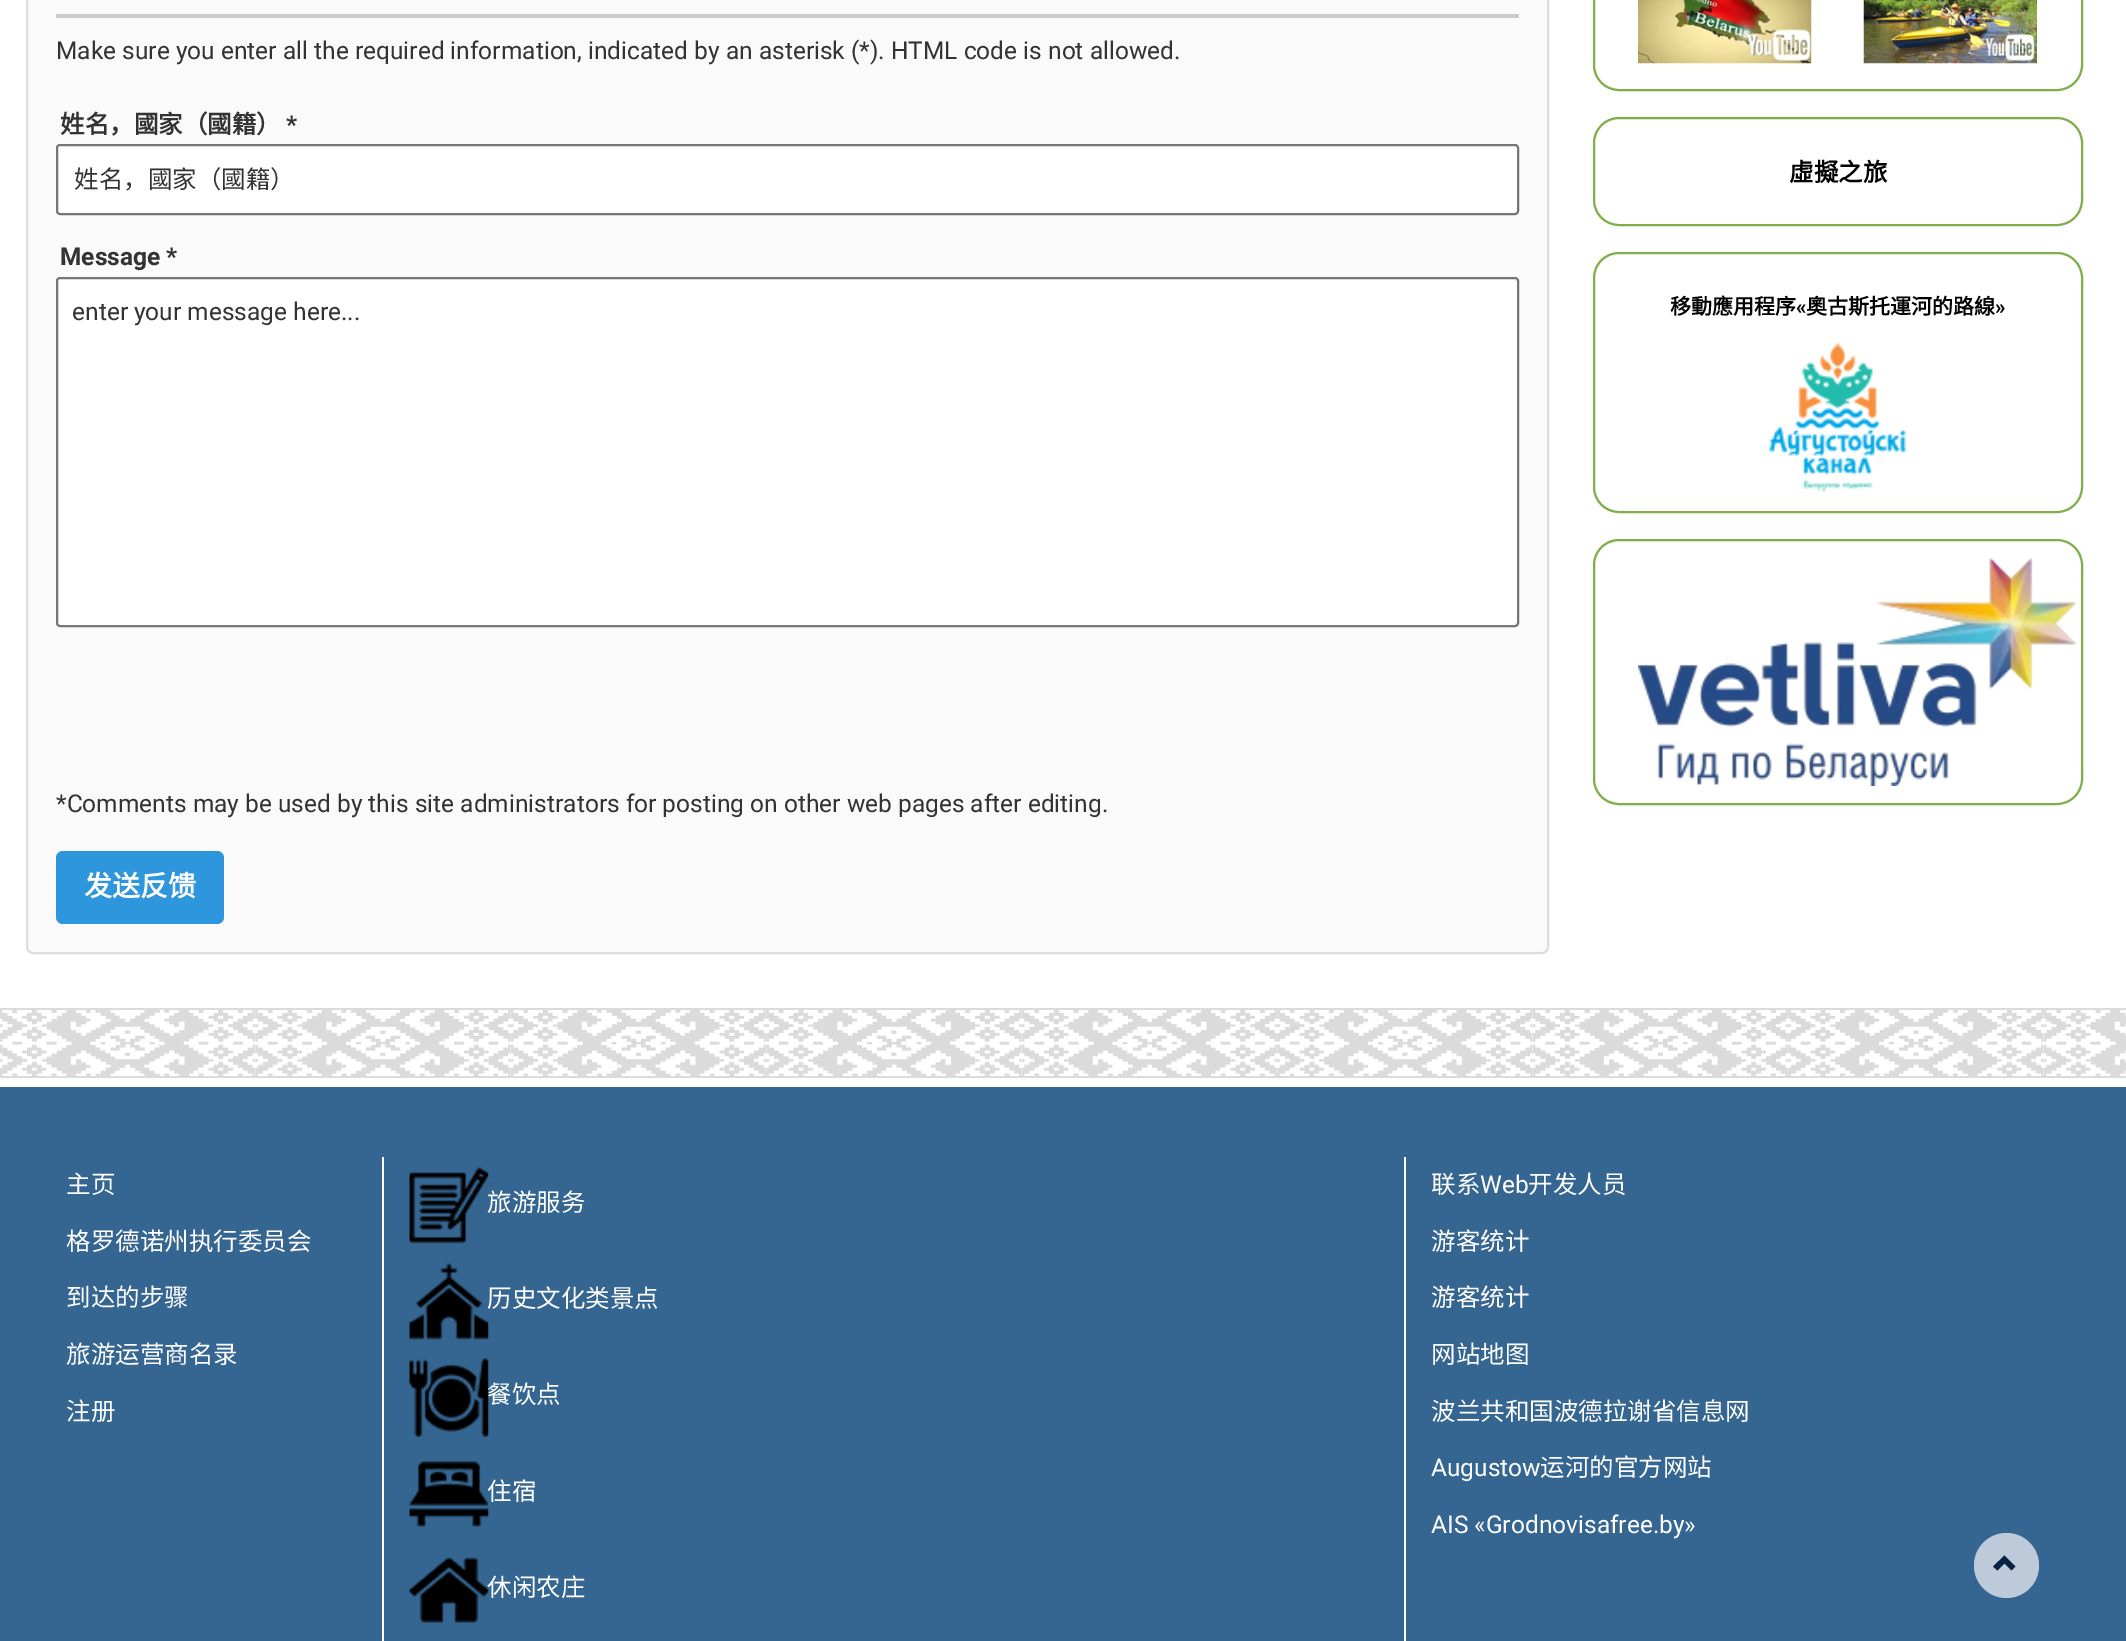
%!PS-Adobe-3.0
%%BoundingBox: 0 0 2126 1641
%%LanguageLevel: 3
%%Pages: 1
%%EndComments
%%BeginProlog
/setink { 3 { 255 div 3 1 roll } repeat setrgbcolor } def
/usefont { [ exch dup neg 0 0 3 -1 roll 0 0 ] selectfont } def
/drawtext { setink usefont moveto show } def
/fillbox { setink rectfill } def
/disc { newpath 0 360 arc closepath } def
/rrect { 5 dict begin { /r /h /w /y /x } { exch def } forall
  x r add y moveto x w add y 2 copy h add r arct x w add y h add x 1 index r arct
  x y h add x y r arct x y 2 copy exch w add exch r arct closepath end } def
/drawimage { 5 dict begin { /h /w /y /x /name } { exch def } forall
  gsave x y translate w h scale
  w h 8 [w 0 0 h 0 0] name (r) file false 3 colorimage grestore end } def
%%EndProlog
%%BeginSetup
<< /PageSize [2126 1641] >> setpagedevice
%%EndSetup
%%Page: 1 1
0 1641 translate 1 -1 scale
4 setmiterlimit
0 0 2126 1641 255 255 255 fillbox
250 250 250 setink
27 -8 1521 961 6 rrect gsave fill grestore
221 221 221 setink
2 setlinewidth
stroke
56 14 1463 4 204 204 204 fillbox
(Make sure you enter all the required information, indicated by an asterisk \(*\). HTML code is not allowed.) 56 59 /Roboto-Regular 24.5 51 51 51 drawtext
(姓名，國家（國籍）) 60 133 /NotoSansCJKSC-Bold 24.5 51 51 51 drawtext
(*) 286 133 /Roboto-Bold 24.5 51 51 51 drawtext
255 255 255 setink
57 145 1461 69 3 rrect gsave fill grestore
118 118 118 setink
stroke
(姓名，國家（國籍）) 74 188 /NotoSansCJKSC-Regular 24.5 51 51 51 drawtext
(Message *) 60 265 /Roboto-Bold 24.5 51 51 51 drawtext
255 255 255 setink
57 278 1461 348 3 rrect gsave fill grestore
118 118 118 setink
stroke
(enter your message here...) 72 320 /Roboto-Regular 24.5 51 51 51 drawtext
(*Comments may be used by this site administrators for posting on other web pages after editing.) 56 812 /Roboto-Regular 24.5 51 51 51 drawtext
45 150 221 setink
56 851 168 73 7 rrect fill
(发送反馈) 84 896 /NotoSansCJKSC-Bold 28 255 255 255 drawtext
127 174 74 setink
1594 -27 488 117 25 rrect stroke
(assets/img1.rgb) 1638 0 174 64 drawimage
(assets/img2.rgb) 1863 0 174 64 drawimage
1594 118 488 107 25 rrect stroke
(虛擬之旅) 1789 181 /NotoSansCJKSC-Bold 24.5 0 0 0 drawtext
127 174 74 setink
1594 253 488 259 25 rrect stroke
(移動應用程序) 1670 314 /NotoSansCJKSC-Bold 21 0 0 0 drawtext
(«) 1796 314 /Roboto-Bold 21 0 0 0 drawtext
(奧古斯托運河的路線) 1806 314 /NotoSansCJKSC-Bold 21 0 0 0 drawtext
(») 1995 314 /Roboto-Bold 21 0 0 0 drawtext
(assets/img3.rgb) 1768 342 139 151 drawimage
127 174 74 setink
1594 540 488 264 25 rrect stroke
(assets/img4.rgb) 1638 558 438 228 drawimage
(assets/img5.rgb) 0 1010 2126 66 drawimage
0 1008 2126 2 220 219 219 fillbox
0 1076 2126 2 220 219 219 fillbox
0 1087 2126 554 53 102 146 fillbox
(主页) 66 1193 /NotoSansCJKSC-Regular 24.5 255 255 255 drawtext
(格罗德诺州执行委员会) 66 1250 /NotoSansCJKSC-Regular 24.5 255 255 255 drawtext
(到达的步骤) 66 1306 /NotoSansCJKSC-Regular 24.5 255 255 255 drawtext
(旅游运营商名录) 66 1363 /NotoSansCJKSC-Regular 24.5 255 255 255 drawtext
(注册) 66 1420 /NotoSansCJKSC-Regular 24.5 255 255 255 drawtext
1404 1157 2 484 255 255 255 fillbox
382 1157 2 484 255 255 255 fillbox
(assets/img6.rgb) 409 1167 80 77 drawimage
(旅游服务) 487 1211 /NotoSansCJKSC-Regular 24.5 255 255 255 drawtext
(assets/img7.rgb) 409 1263 80 77 drawimage
(历史文化类景点) 487 1307 /NotoSansCJKSC-Regular 24.5 255 255 255 drawtext
(assets/img8.rgb) 409 1358 80 79 drawimage
(餐饮点) 487 1403 /NotoSansCJKSC-Regular 24.5 255 255 255 drawtext
(assets/img9.rgb) 409 1461 80 66 drawimage
(住宿) 487 1500 /NotoSansCJKSC-Regular 24.5 255 255 255 drawtext
(assets/img10.rgb) 409 1557 80 66 drawimage
(休闲农庄) 487 1596 /NotoSansCJKSC-Regular 24.5 255 255 255 drawtext
(联系) 1431 1193 /NotoSansCJKSC-Regular 24.5 255 255 255 drawtext
(Web) 1480 1193 /Roboto-Regular 24.5 255 255 255 drawtext
(开发人员) 1528 1193 /NotoSansCJKSC-Regular 24.5 255 255 255 drawtext
(游客统计) 1431 1250 /NotoSansCJKSC-Regular 24.5 255 255 255 drawtext
(游客统计) 1431 1306 /NotoSansCJKSC-Regular 24.5 255 255 255 drawtext
(网站地图) 1431 1363 /NotoSansCJKSC-Regular 24.5 255 255 255 drawtext
(波兰共和国波德拉谢省信息网) 1431 1420 /NotoSansCJKSC-Regular 24.5 255 255 255 drawtext
(Augustow) 1431 1476 /Roboto-Regular 24.5 255 255 255 drawtext
(运河的官方网站) 1540 1476 /NotoSansCJKSC-Regular 24.5 255 255 255 drawtext
(AIS «Grodnovisafree.by») 1431 1533 /Roboto-Regular 24.5 255 255 255 drawtext
189 202 217 setink
2006.5 1565.5 32.5 disc fill
6 36 66 setink
2015.5 1566.5 moveto 2011.5 1570.5 lineto 2004.5 1563.5 lineto 1997.5 1570.5 lineto 1993 1566.5 lineto 2004.5 1555.5 lineto closepath fill
showpage
%%EOF
